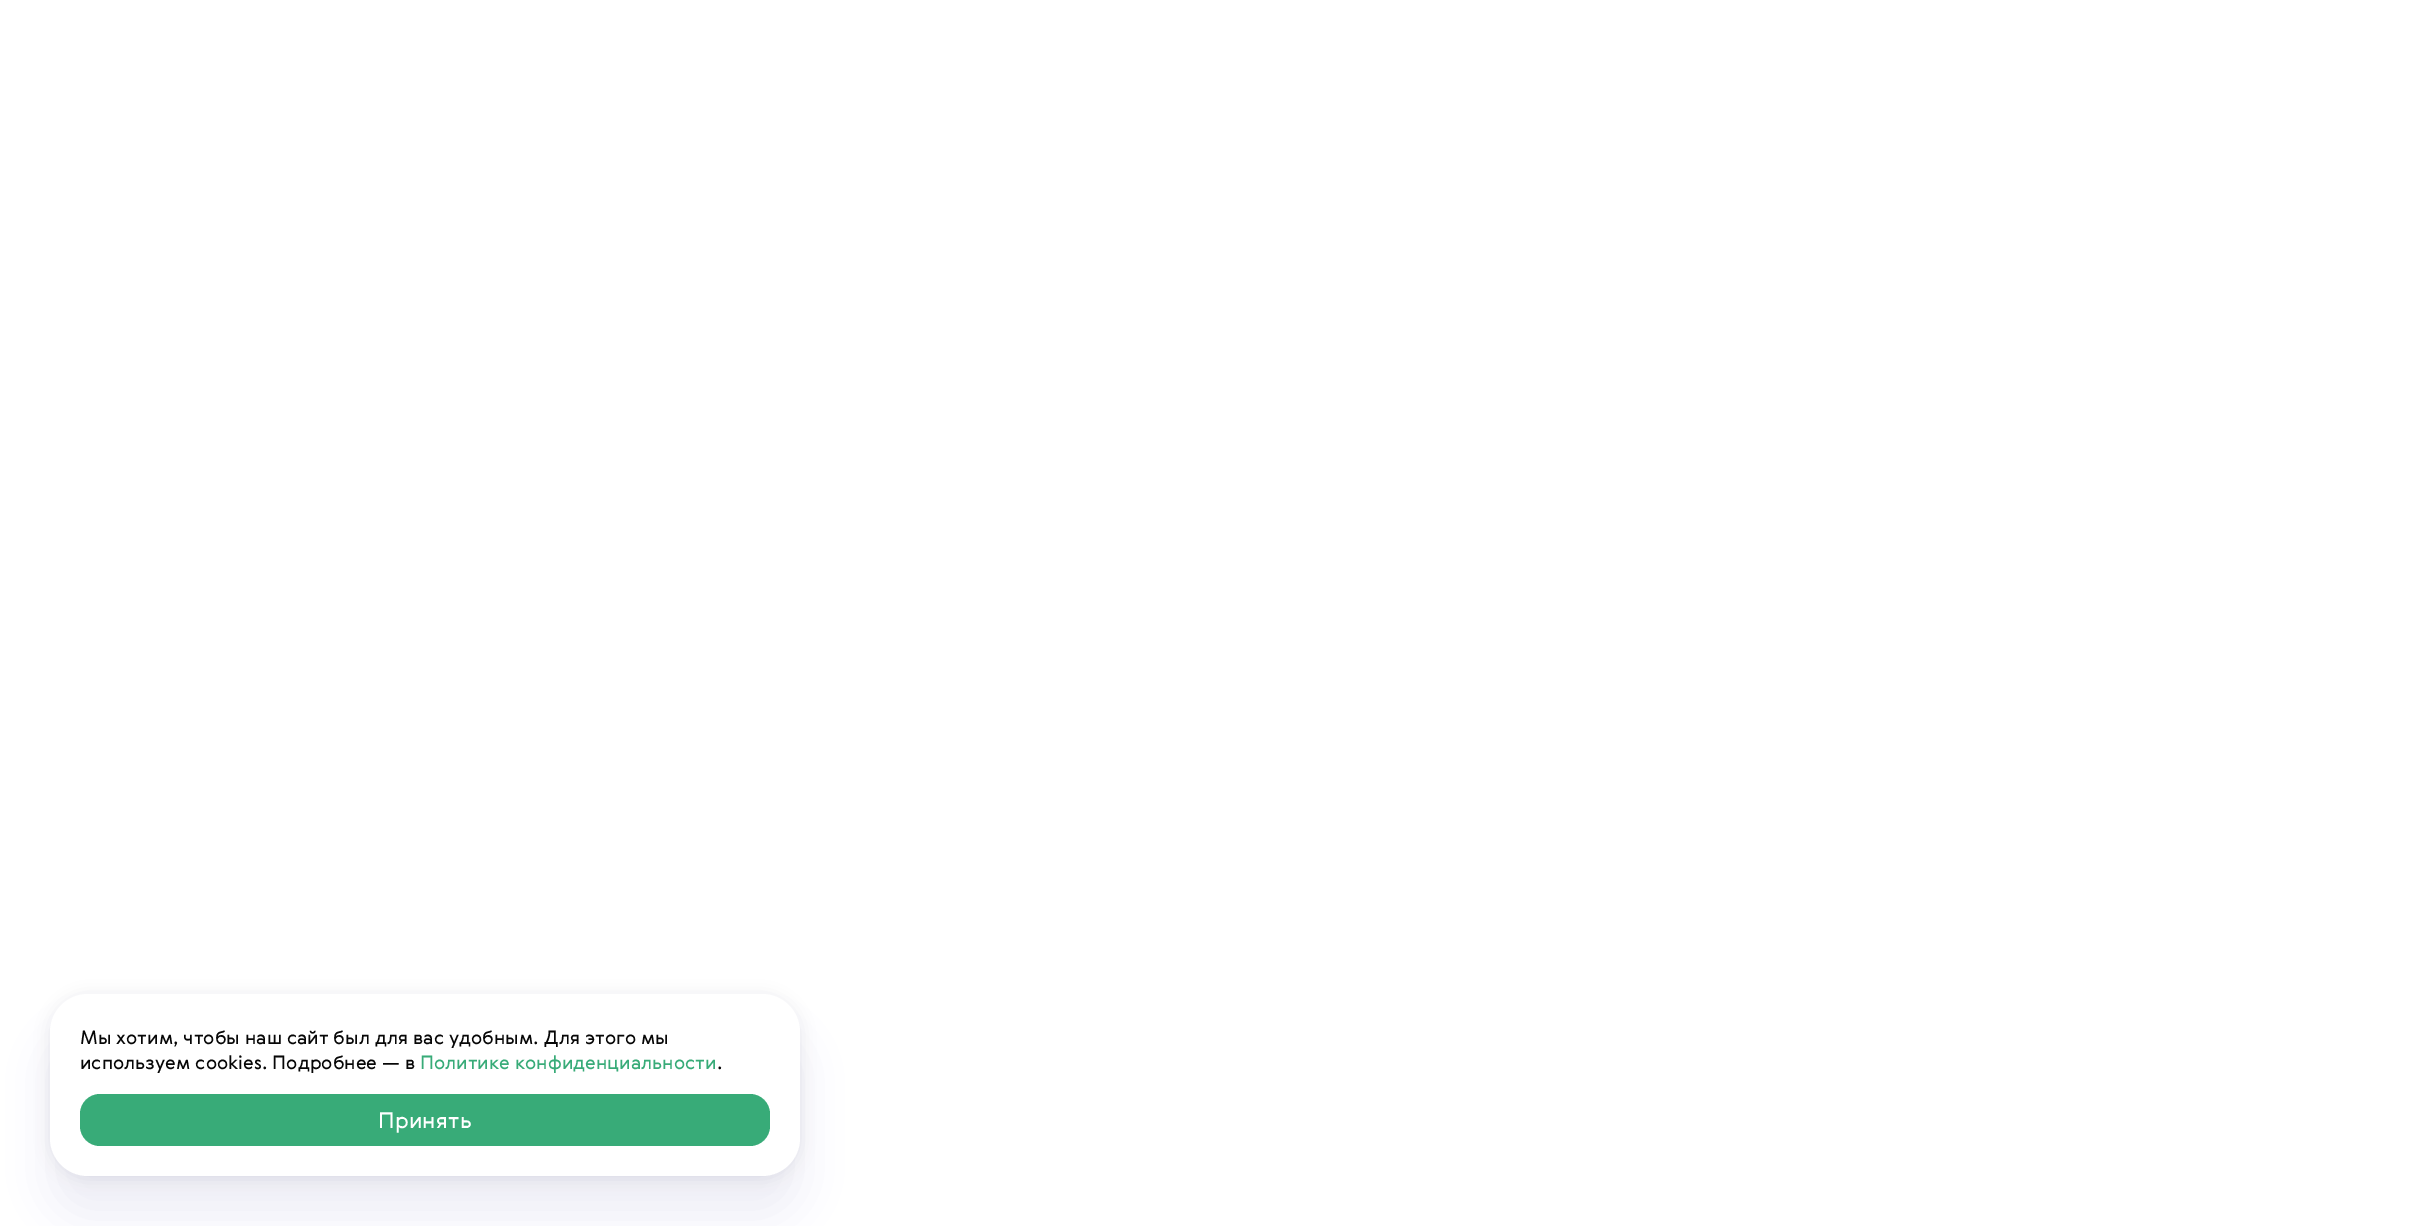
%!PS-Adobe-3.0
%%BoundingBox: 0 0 2424 1226
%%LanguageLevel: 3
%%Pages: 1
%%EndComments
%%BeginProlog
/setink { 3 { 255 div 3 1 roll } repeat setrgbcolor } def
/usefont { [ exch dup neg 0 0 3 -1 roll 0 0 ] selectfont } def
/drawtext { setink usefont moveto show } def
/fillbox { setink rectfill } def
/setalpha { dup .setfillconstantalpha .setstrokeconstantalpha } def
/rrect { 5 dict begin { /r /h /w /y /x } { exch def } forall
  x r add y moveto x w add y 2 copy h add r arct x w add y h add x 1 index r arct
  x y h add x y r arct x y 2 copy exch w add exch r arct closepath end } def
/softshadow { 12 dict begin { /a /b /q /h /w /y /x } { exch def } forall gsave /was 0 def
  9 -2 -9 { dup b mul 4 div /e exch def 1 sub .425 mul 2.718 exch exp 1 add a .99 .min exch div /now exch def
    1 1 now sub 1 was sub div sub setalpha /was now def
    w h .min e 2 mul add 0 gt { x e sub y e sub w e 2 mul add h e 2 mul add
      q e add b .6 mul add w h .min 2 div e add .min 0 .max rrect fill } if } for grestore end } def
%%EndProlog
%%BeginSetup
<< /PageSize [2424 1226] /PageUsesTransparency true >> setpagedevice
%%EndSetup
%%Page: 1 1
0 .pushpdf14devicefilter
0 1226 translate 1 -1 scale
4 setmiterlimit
0 0 2424 1226 255 255 255 fillbox
18 18 41 setink
50 996 750 183 38 7.5 0.08 softshadow
60 59 137 setink
50 1034 750 182 38 20 0.08 softshadow
255 255 255 setink
50 994 750 182 38 rrect fill
(Мы хотим, чтобы наш сайт был для вас удобным. Для этого мы) 80 1044 /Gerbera-Regular 18.75 7 7 7 drawtext
(используем cookies. Подробнее — в) 80 1069 /Gerbera-Regular 18.75 7 7 7 drawtext
(Политике конфиденциальности) 420 1069 /Gerbera-Regular 18.75 56 171 120 drawtext
(.) 717 1069 /Gerbera-Regular 18.75 7 7 7 drawtext
56 171 120 setink
80 1094 690 52 20 rrect fill
/Gerbera-Regular 22 usefont
255 255 255 setink
378 1128 moveto 0.25 0 (Принять) ashow
.poppdf14devicefilter showpage
%%EOF
